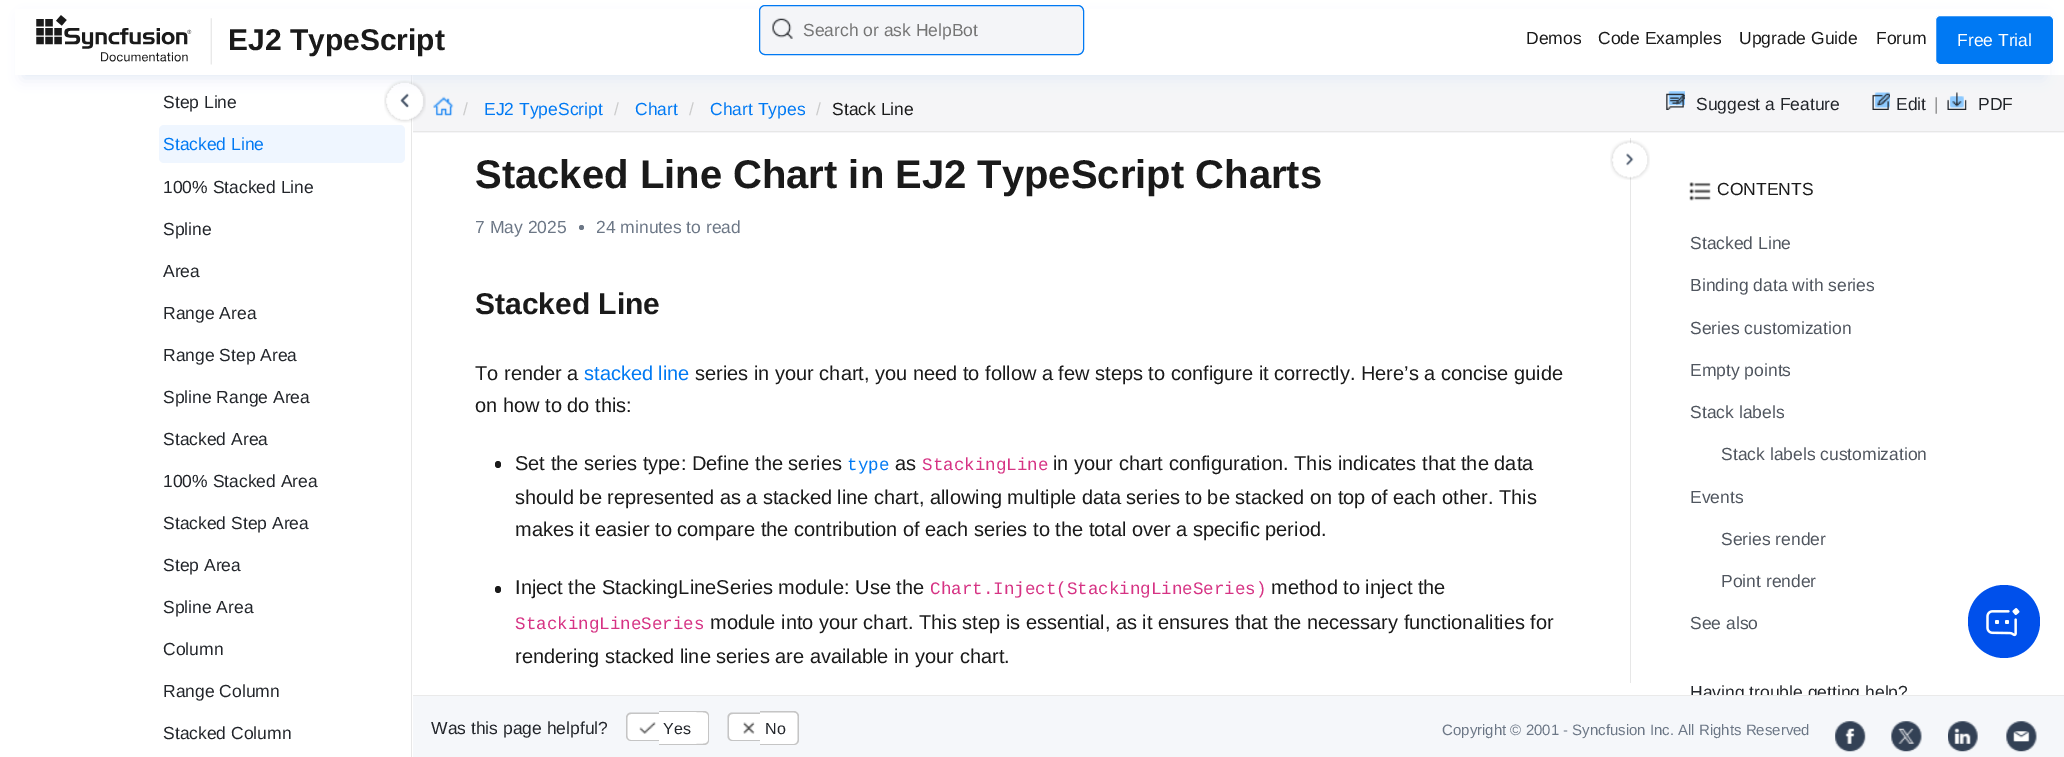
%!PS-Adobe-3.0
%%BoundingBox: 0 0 2064 757
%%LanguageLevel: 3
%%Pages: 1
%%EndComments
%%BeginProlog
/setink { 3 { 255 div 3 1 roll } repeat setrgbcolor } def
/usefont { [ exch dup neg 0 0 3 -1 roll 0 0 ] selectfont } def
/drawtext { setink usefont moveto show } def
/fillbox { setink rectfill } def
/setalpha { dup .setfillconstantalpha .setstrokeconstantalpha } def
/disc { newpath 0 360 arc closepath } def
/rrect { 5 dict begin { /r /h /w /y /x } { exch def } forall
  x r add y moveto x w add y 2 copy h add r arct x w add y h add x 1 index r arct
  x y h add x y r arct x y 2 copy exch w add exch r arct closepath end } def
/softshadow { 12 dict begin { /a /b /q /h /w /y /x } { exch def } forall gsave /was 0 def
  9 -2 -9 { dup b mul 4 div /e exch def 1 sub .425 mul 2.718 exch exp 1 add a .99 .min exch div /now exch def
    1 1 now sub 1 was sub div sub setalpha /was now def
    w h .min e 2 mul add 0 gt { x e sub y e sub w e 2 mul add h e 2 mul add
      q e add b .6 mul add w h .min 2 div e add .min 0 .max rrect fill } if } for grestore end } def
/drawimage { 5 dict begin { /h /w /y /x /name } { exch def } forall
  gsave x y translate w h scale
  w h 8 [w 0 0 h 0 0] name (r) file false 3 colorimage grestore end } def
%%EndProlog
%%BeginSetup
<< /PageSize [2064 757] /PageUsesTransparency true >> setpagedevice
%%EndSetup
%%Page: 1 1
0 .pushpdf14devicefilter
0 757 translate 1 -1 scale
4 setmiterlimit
0 0 2064 757 255 255 255 fillbox
413 75 1651 58 245 245 247 fillbox
(assets/img3.rgb) 433 96 21 20 drawimage
(assets/img4.rgb) 1666 91 19 19 drawimage
(assets/img5.rgb) 1872 92 18 18 drawimage
(assets/img6.rgb) 1947 92 20 18 drawimage
411 75 1 682 231 231 231 fillbox
(assets/img7.rgb) 384 80 42 43 drawimage
226 234 245 setink
23 18 2020 60 0 7 1 softshadow
15 9 2035 66 255 255 255 fillbox
(assets/img1.rgb) 36 15 176 50 drawimage
(EJ2 TypeScript) 228 50 /LiberationSans-Bold 30 26 26 26 drawtext
244 245 248 setink
759 5 325 50 6 rrect fill
(assets/img2.rgb) 772 18 21 21 drawimage
0 121 243 setink
759.5 5.5 324 49 5.5 rrect stroke
(Search or ask HelpBot) 803 36 /LiberationSans-Regular 17.5 117 117 117 drawtext
(Demos) 1526 44 /LiberationSans-Regular 17.5 26 26 26 drawtext
(Code Examples) 1598 44 /LiberationSans-Regular 17.5 26 26 26 drawtext
(Upgrade Guide) 1739 44 /LiberationSans-Regular 17.5 26 26 26 drawtext
(Forum) 1876 44 /LiberationSans-Regular 17.5 26 26 26 drawtext
0 121 243 setink
1935.5 15.5 118 49 4.5 rrect gsave fill grestore
255 255 255 setink
stroke
(Free Trial) 1957 46 /LiberationSans-Regular 17.5 255 255 255 drawtext
413 131 1651 1 231 231 231 fillbox
(/) 463 115 /LiberationSans-Regular 17.5 204 204 204 drawtext
(EJ2 TypeScript) 484 115 /LiberationSans-Regular 17.5 0 121 243 drawtext
(/) 614 115 /LiberationSans-Regular 17.5 204 204 204 drawtext
(Chart) 635 115 /LiberationSans-Regular 17.5 0 121 243 drawtext
(/) 689 115 /LiberationSans-Regular 17.5 204 204 204 drawtext
(Chart Types) 710 115 /LiberationSans-Regular 17.5 0 121 243 drawtext
(/) 816 115 /LiberationSans-Regular 17.5 204 204 204 drawtext
(Stack Line) 832 115 /LiberationSans-Regular 17.5 26 26 26 drawtext
(Suggest a Feature) 1696 110 /LiberationSans-Regular 17.5 34 37 42 drawtext
(Edit) 1896 110 /LiberationSans-Regular 17.5 34 37 42 drawtext
(|) 1934 110 /LiberationSans-Regular 17.5 151 151 151 drawtext
(PDF) 1978 110 /LiberationSans-Regular 17.5 34 37 42 drawtext
(Step Line) 163 108 /LiberationSans-Regular 17.5 34 37 42 drawtext
239 246 255 setink
159 125 246 38 5 rrect fill
(Stacked Line) 163 150 /LiberationSans-Regular 17.5 0 121 243 drawtext
(100% Stacked Line) 163 193 /LiberationSans-Regular 17.5 34 37 42 drawtext
(Spline) 163 235 /LiberationSans-Regular 17.5 34 37 42 drawtext
(Area) 163 277 /LiberationSans-Regular 17.5 34 37 42 drawtext
(Range Area) 163 319 /LiberationSans-Regular 17.5 34 37 42 drawtext
(Range Step Area) 163 361 /LiberationSans-Regular 17.5 34 37 42 drawtext
(Spline Range Area) 163 403 /LiberationSans-Regular 17.5 34 37 42 drawtext
(Stacked Area) 163 445 /LiberationSans-Regular 17.5 34 37 42 drawtext
(100% Stacked Area) 163 487 /LiberationSans-Regular 17.5 34 37 42 drawtext
(Stacked Step Area) 163 529 /LiberationSans-Regular 17.5 34 37 42 drawtext
(Step Area) 163 571 /LiberationSans-Regular 17.5 34 37 42 drawtext
(Spline Area) 163 613 /LiberationSans-Regular 17.5 34 37 42 drawtext
(Column) 163 655 /LiberationSans-Regular 17.5 34 37 42 drawtext
(Range Column) 163 697 /LiberationSans-Regular 17.5 34 37 42 drawtext
(Stacked Column) 163 739 /LiberationSans-Regular 17.5 34 37 42 drawtext
1630 138 1 545 231 231 231 fillbox
(Stacked Line Chart in EJ2 TypeScript Charts) 475 188 /LiberationSans-Bold 40 26 26 26 drawtext
(7 May 2025) 475 233 /LiberationSans-Regular 17.5 108 119 134 drawtext
581.5 227.5 2.5 disc fill
(24 minutes to read) 596 233 /LiberationSans-Regular 17.5 108 119 134 drawtext
(Stacked Line) 475 314 /LiberationSans-Bold 30 26 26 26 drawtext
(To render a) 475 380 /LiberationSans-Regular 20 26 26 26 drawtext
(stacked line) 584 380 /LiberationSans-Regular 20 0 121 243 drawtext
(series in your chart, you need to follow a few steps to configure it correctly. Here’s a concise guide) 695 380 /LiberationSans-Regular 20 26 26 26 drawtext
(on how to do this:) 475 412 /LiberationSans-Regular 20 26 26 26 drawtext
495 461 6 7 3 rrect fill
(Set the series type: Define the series) 515 470 /LiberationSans-Regular 20 26 26 26 drawtext
(type) 847 470 /LiberationMono-Regular 17.5 0 121 243 drawtext
(as) 895 470 /LiberationSans-Regular 20 26 26 26 drawtext
(StackingLine) 922 470 /LiberationMono-Regular 17.5 214 51 132 drawtext
(in your chart configuration. This indicates that the data) 1053 470 /LiberationSans-Regular 20 26 26 26 drawtext
(should be represented as a stacked line chart, allowing multiple data series to be stacked on top of each other. This) 515 504 /LiberationSans-Regular 20 26 26 26 drawtext
(makes it easier to compare the contribution of each series to the total over a specific period.) 515 536 /LiberationSans-Regular 20 26 26 26 drawtext
495 586 6 7 3 rrect fill
(Inject the StackingLineSeries module: Use the) 515 594 /LiberationSans-Regular 20 26 26 26 drawtext
(Chart.Inject\(StackingLineSeries\)) 930 594 /LiberationMono-Regular 17.5 214 51 132 drawtext
(method to inject the) 1271 594 /LiberationSans-Regular 20 26 26 26 drawtext
(StackingLineSeries) 515 629 /LiberationMono-Regular 17.5 214 51 132 drawtext
(module into your chart. This step is essential, as it ensures that the necessary functionalities for) 710 629 /LiberationSans-Regular 20 26 26 26 drawtext
(rendering stacked line series are available in your chart.) 515 663 /LiberationSans-Regular 20 26 26 26 drawtext
(assets/img8.rgb) 1610 140 40 40 drawimage
(assets/img9.rgb) 1689 182 22 19 drawimage
(CONTENTS) 1717 195 /LiberationSans-Regular 17.5 26 26 26 drawtext
(Stacked Line) 1690 249 /LiberationSans-Regular 17.5 80 86 95 drawtext
(Binding data with series) 1690 291 /LiberationSans-Regular 17.5 80 86 95 drawtext
(Series customization) 1690 334 /LiberationSans-Regular 17.5 80 86 95 drawtext
(Empty points) 1690 376 /LiberationSans-Regular 17.5 80 86 95 drawtext
(Stack labels) 1690 418 /LiberationSans-Regular 17.5 80 86 95 drawtext
(Stack labels customization) 1721 460 /LiberationSans-Regular 17.5 80 86 95 drawtext
(Events) 1690 503 /LiberationSans-Regular 17.5 80 86 95 drawtext
(Series render) 1721 545 /LiberationSans-Regular 17.5 80 86 95 drawtext
(Point render) 1721 587 /LiberationSans-Regular 17.5 80 86 95 drawtext
(See also) 1690 629 /LiberationSans-Regular 17.5 80 86 95 drawtext
(Having trouble getting help?) 1690 698 /LiberationSans-Regular 17.5 34 37 42 drawtext
0 80 235 setink
1968 585 72 73 36 rrect fill
(assets/img10.rgb) 1986 608 34 29 drawimage
413 696 1651 61 245 247 250 fillbox
413 695 1651 1 234 234 234 fillbox
(Was this page helpful?) 431 734 /LiberationSans-Regular 17.5 34 37 42 drawtext
255 255 255 setink
631 713 moveto 659 713 lineto 659 741 lineto 631 741 lineto 628 741 626 739 626 736 curveto 626 718 lineto 626 715 628 713 631 713 curveto closepath fill
197 197 197 setink
631 712.5 moveto 659 712.5 lineto 659 741 lineto 631 741 lineto 628.5 741 626 739 626 736 curveto 626 717.5 lineto 626 714.5 628.5 712.5 631 712.5 curveto closepath 631 714 moveto 659 714 lineto 659 740 lineto 631 740 lineto 629 740 627.5 738.5 627.5 736 curveto 627.5 717.5 lineto 627.5 715.5 629 714 631 714 curveto closepath eofill
255 255 255 setink
659 711 moveto 704 711 lineto 707 711 709 713 709 716 curveto 709 740 lineto 709 743 707 745 704 745 curveto 659 745 lineto closepath fill
197 197 197 setink
659 711 moveto 704 711 lineto 707 711 709 713 709 716 curveto 709 740 lineto 709 743 707 745 704 745 curveto 659 745 lineto closepath 659 712 moveto 696 712 lineto 711 712 708 713 708 728 curveto 708 743 711 744 696 744 curveto 659 744 lineto closepath eofill
(assets/img11.rgb) 639 722 17 12 drawimage
(Yes) 663 734 /LiberationSans-Regular 16 34 37 42 drawtext
255 255 255 setink
733 713 moveto 760 713 lineto 760 741 lineto 733 741 lineto 730 741 728 739 728 736 curveto 728 718 lineto 728 715 730 713 733 713 curveto closepath fill
197 197 197 setink
732.5 712.5 moveto 760 712.5 lineto 760 741 lineto 732.5 741 lineto 729.5 741 727.5 739 727.5 736 curveto 727.5 717.5 lineto 727.5 714.5 729.5 712.5 732.5 712.5 curveto closepath 732.5 714 moveto 760 714 lineto 760 740 lineto 732.5 740 lineto 730.5 740 729 738.5 729 736 curveto 729 717.5 lineto 729 715.5 730.5 714 732.5 714 curveto closepath eofill
255 255 255 setink
760 711 moveto 794 711 lineto 797 711 799 713 799 716 curveto 799 740 lineto 799 743 797 745 794 745 curveto 760 745 lineto closepath fill
197 197 197 setink
760 711 moveto 794 711 lineto 796.5 711 799 713.5 799 716 curveto 799 740 lineto 799 743 796.5 745 794 745 curveto 760 745 lineto closepath 760 712.5 moveto 794 712.5 lineto 796 712.5 797.5 714 797.5 716 curveto 797.5 740 lineto 797.5 742 796 744 794 744 curveto 760 744 lineto closepath eofill
(assets/img12.rgb) 743 722 12 12 drawimage
(No) 765 734 /LiberationSans-Regular 16 34 37 42 drawtext
(Copyright © 2001 - Syncfusion Inc. All Rights Reserved) 1442 735 /LiberationSans-Regular 15 108 119 134 drawtext
(assets/img13.rgb) 1835 721 31 31 drawimage
(assets/img14.rgb) 1891 721 31 31 drawimage
(assets/img15.rgb) 1948 721 30 31 drawimage
(assets/img16.rgb) 2006 721 31 31 drawimage
.poppdf14devicefilter showpage
%%EOF
